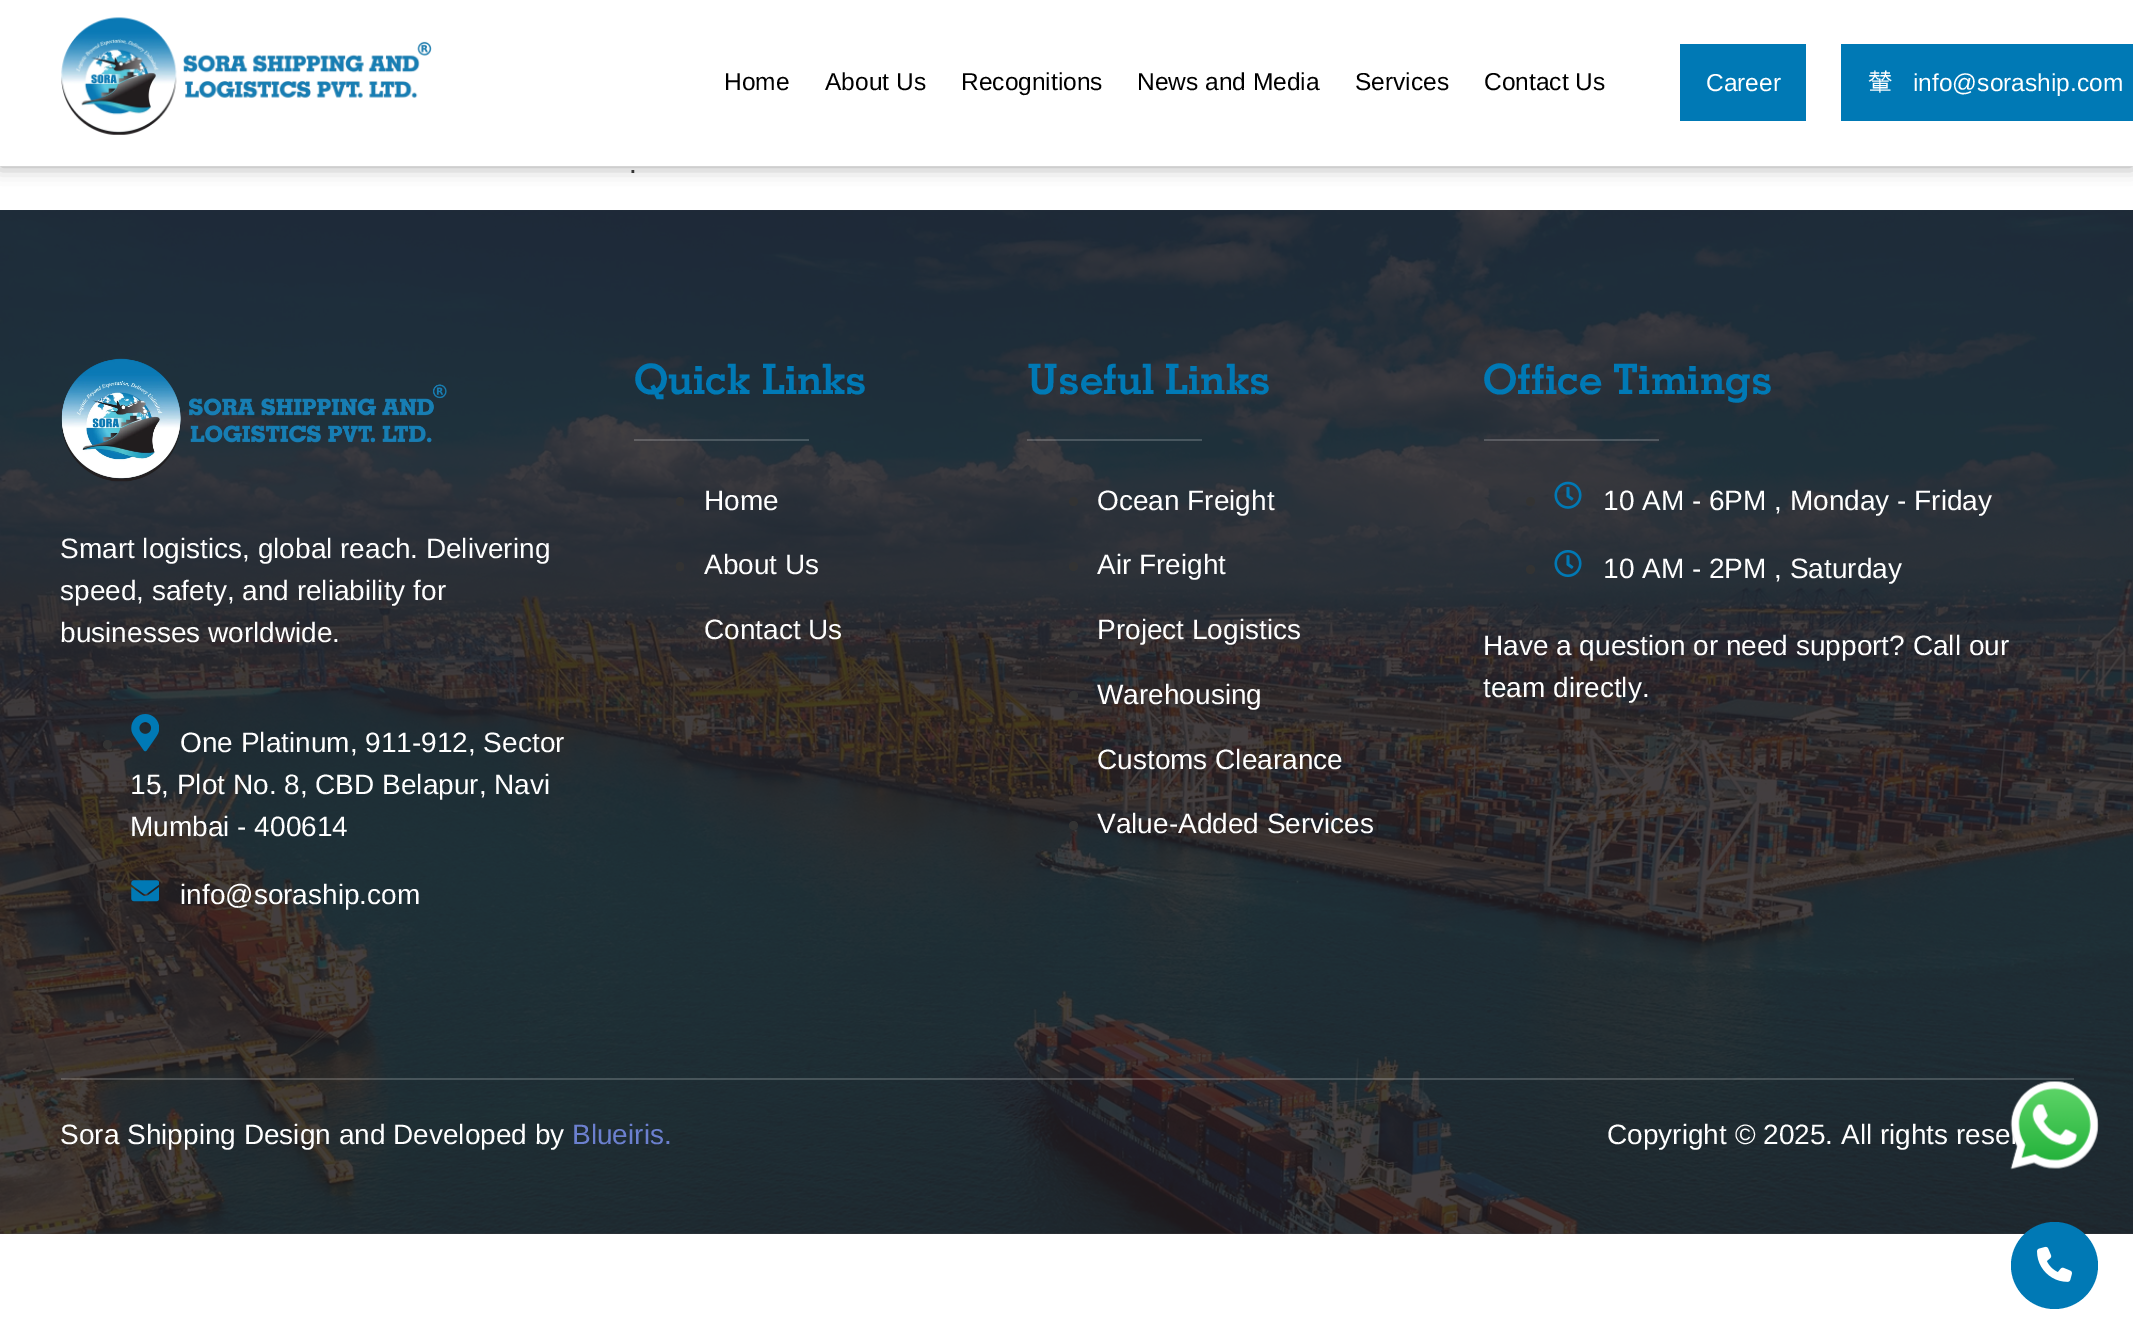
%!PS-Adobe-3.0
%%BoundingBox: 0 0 2133 1343
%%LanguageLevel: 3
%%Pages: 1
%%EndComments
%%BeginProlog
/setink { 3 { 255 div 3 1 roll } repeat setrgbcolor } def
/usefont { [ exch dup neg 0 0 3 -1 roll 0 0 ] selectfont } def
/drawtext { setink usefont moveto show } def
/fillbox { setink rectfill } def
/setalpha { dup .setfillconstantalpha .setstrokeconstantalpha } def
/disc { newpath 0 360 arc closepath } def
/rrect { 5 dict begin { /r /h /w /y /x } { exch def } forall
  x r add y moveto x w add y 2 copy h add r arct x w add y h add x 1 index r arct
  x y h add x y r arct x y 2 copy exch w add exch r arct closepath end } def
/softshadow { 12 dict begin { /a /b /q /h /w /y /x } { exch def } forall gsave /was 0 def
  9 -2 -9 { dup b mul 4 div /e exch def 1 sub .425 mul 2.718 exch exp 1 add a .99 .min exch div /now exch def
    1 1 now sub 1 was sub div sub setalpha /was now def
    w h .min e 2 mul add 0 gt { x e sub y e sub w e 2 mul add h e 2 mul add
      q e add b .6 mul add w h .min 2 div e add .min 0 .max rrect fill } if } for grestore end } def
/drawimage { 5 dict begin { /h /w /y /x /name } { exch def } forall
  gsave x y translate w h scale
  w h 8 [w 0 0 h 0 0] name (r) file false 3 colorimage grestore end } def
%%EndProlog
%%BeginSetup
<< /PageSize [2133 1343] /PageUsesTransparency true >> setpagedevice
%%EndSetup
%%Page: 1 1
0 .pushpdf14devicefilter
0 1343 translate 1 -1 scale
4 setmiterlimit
0 0 2133 1343 255 255 255 fillbox
0 0 0 setink
0 0 2133 166 0 9 0.39 softshadow
0 0 2133 166 255 255 255 fillbox
0.12 setalpha
0 166 2133 1 255 255 255 fillbox
1 setalpha
(assets/img1.rgb) 61 17 371 118 drawimage
(Home) 724 90 /LiberationSans-Regular 24.5 0 0 0 drawtext
(About Us) 825 90 /LiberationSans-Regular 24.5 0 0 0 drawtext
(Recognitions) 961 90 /LiberationSans-Regular 24.5 0 0 0 drawtext
(News and Media) 1137 90 /LiberationSans-Regular 24.5 0 0 0 drawtext
(Services) 1355 90 /LiberationSans-Regular 24.5 0 0 0 drawtext
(Contact Us) 1484 90 /LiberationSans-Regular 24.5 0 0 0 drawtext
1680 44 126 77 0 121 181 fillbox
(Career) 1706 91 /LiberationSans-Regular 24.5 255 255 255 drawtext
1841 44 292 77 0 121 181 fillbox
(輦) 1868 89 /WenQuanYiZenHei-Medium 24.5 255 255 255 drawtext
(info@soraship.com) 1913 91 /LiberationSans-Regular 24.5 255 255 255 drawtext
(.) 629 173 /LiberationSans-Regular 28 51 51 51 drawtext
(assets/img2.rgb) 0 210 2133 1024 drawimage
(assets/img3.rgb) 61 358 386 124 drawimage
(Smart logistics, global reach. Delivering) 60 558 /LiberationSans-Regular 28 255 255 255 drawtext
(speed, safety, and reliability for) 60 600 /LiberationSans-Regular 28 255 255 255 drawtext
(businesses worldwide.) 60 642 /LiberationSans-Regular 28 255 255 255 drawtext
51 51 51 setink
107.5 744.5 4.5 disc fill
(assets/img4.rgb) 131 714 28 38 drawimage
(One Platinum, 911-912, Sector) 180 752 /LiberationSans-Regular 28 255 255 255 drawtext
(15, Plot No. 8, CBD Belapur, Navi) 130 794 /LiberationSans-Regular 28 255 255 255 drawtext
(Mumbai - 400614) 130 836 /LiberationSans-Regular 28 255 255 255 drawtext
51 51 51 setink
103 893 9 8 4 rrect fill
(assets/img5.rgb) 131 880 28 22 drawimage
(info@soraship.com) 180 904 /LiberationSans-Regular 28 255 255 255 drawtext
(Quick Links) 634 394 /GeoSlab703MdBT-Bold 42 0 121 181 drawtext
0.19 setalpha
634 439 175 2 255 255 255 fillbox
1 setalpha
51 51 51 setink
676 497 8 9 4 rrect fill
(Home) 704 510 /LiberationSans-Regular 28 255 255 255 drawtext
51 51 51 setink
676 562 8 9 4 rrect fill
(About Us) 704 574 /LiberationSans-Regular 28 255 255 255 drawtext
51 51 51 setink
680 631 4 disc fill
(Contact Us) 704 639 /LiberationSans-Regular 28 255 255 255 drawtext
(Useful Links) 1027 394 /GeoSlab703MdBT-Bold 42 0 121 181 drawtext
0.19 setalpha
1027 439 175 2 255 255 255 fillbox
1 setalpha
51 51 51 setink
1073.5 501.5 4.5 disc fill
(Ocean Freight) 1097 510 /LiberationSans-Regular 28 255 255 255 drawtext
51 51 51 setink
1073.5 566.5 4.5 disc fill
(Air Freight) 1097 574 /LiberationSans-Regular 28 255 255 255 drawtext
51 51 51 setink
1069 627 9 8 4 rrect fill
(Project Logistics) 1097 639 /LiberationSans-Regular 28 255 255 255 drawtext
51 51 51 setink
1073.5 695.5 4.5 disc fill
(Warehousing) 1097 704 /LiberationSans-Regular 28 255 255 255 drawtext
51 51 51 setink
1073.5 760.5 4.5 disc fill
(Customs Clearance) 1097 769 /LiberationSans-Regular 28 255 255 255 drawtext
51 51 51 setink
1073.5 825.5 4.5 disc fill
(Value-Added Services) 1097 833 /LiberationSans-Regular 28 255 255 255 drawtext
(Office Timings) 1483 394 /GeoSlab703MdBT-Bold 42 0 121 181 drawtext
0.19 setalpha
1484 439 175 2 255 255 255 fillbox
1 setalpha
51 51 51 setink
1530.5 501.5 4.5 disc fill
(assets/img6.rgb) 1554 481 28 28 drawimage
(10 AM - 6PM , Monday - Friday) 1603 510 /LiberationSans-Regular 28 255 255 255 drawtext
51 51 51 setink
1530.5 569.5 4.5 disc fill
(assets/img7.rgb) 1554 550 28 27 drawimage
(10 AM - 2PM , Saturday) 1603 578 /LiberationSans-Regular 28 255 255 255 drawtext
(Have a question or need support? Call our) 1483 655 /LiberationSans-Regular 28 255 255 255 drawtext
(team directly.) 1483 697 /LiberationSans-Regular 28 255 255 255 drawtext
0.19 setalpha
61 1078 2013 2 255 255 255 fillbox
1 setalpha
(Sora Shipping Design and Developed by) 60 1144 /LiberationSans-Regular 28 255 255 255 drawtext
(Blueiris.) 572 1144 /LiberationSans-Regular 28 108 128 207 drawtext
(Copyright © 2025. All rights rese) 1607 1144 /LiberationSans-Regular 28 255 255 255 drawtext
(assets/img8.rgb) 2010 1081 89 89 drawimage
0 121 181 setink
2054.5 1265.5 43.5 disc fill
(assets/img9.rgb) 2037 1246 35 36 drawimage
.poppdf14devicefilter showpage
%%EOF
